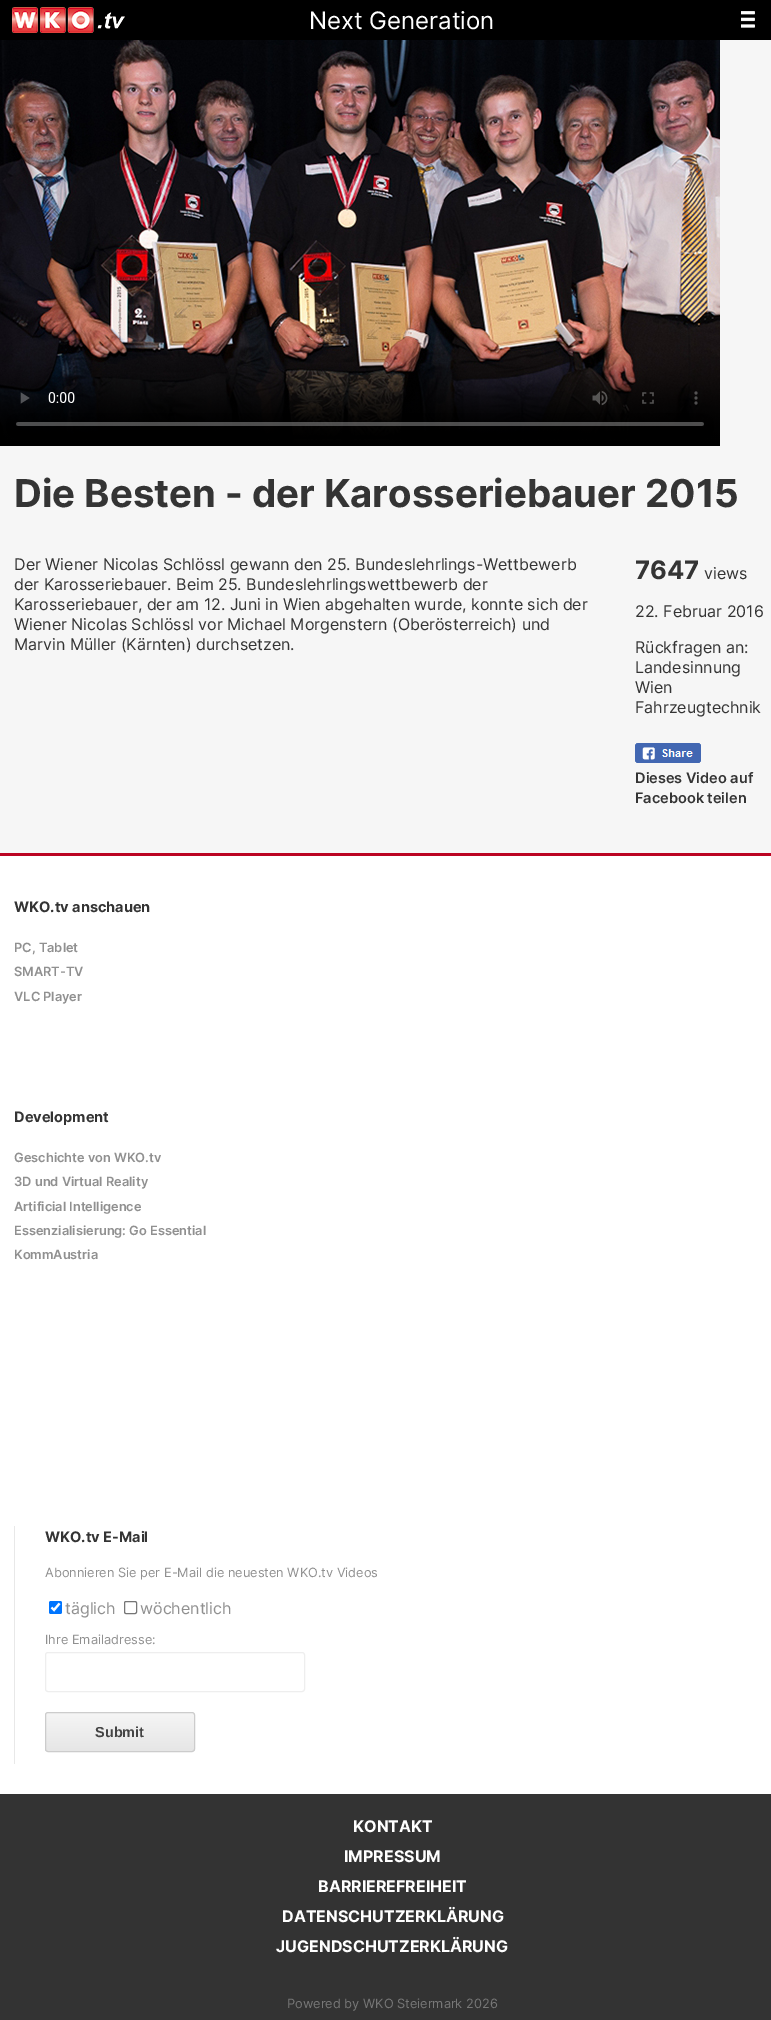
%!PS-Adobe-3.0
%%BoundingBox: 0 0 771 2020
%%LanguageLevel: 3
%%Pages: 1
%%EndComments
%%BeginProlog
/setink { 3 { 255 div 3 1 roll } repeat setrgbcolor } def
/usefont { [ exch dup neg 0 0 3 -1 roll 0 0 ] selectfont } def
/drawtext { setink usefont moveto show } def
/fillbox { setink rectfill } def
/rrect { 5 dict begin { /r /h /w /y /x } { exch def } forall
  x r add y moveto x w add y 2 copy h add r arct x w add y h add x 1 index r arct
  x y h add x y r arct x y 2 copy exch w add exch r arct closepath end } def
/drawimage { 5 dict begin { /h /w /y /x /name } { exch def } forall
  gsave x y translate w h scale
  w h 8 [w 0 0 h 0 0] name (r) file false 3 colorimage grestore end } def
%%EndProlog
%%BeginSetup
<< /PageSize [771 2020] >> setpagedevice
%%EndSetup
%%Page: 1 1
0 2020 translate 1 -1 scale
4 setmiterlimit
0 0 771 2020 246 246 246 fillbox
0 0 771 40 0 0 0 fillbox
(assets/img1.rgb) 12 7 113 26 drawimage
(Next Generation) 309 29 /Inter-Regular 24 255 255 255 drawtext
(assets/img2.rgb) 741 11 14 17 drawimage
(assets/img3.rgb) 0 40 720 406 drawimage
(Die Besten - der Karosseriebauer 2015) 14 507 /Inter-Bold 38.4 52 52 52 drawtext
(Der Wiener Nicolas Schlössl gewann den 25. Bundeslehrlings-Wettbewerb) 14 570 /Inter-Regular 16 52 52 52 drawtext
(der Karosseriebauer. Beim 25. Bundeslehrlingswettbewerb der) 14 590 /Inter-Regular 16 52 52 52 drawtext
(Karosseriebauer, der am 12. Juni in Wien abgehalten wurde, konnte sich der) 14 610 /Inter-Regular 16 52 52 52 drawtext
(Wiener Nicolas Schlössl vor Michael Morgenstern \(Oberösterreich\) und) 14 630 /Inter-Regular 16 52 52 52 drawtext
(Marvin Müller \(Kärnten\) durchsetzen.) 14 650 /Inter-Regular 16 52 52 52 drawtext
(7647) 635 579 /Inter-Bold 25.5 52 52 52 drawtext
(views) 704 579 /Inter-Regular 16 52 52 52 drawtext
(22. Februar 2016) 635 617 /Inter-Regular 16 52 52 52 drawtext
(Rückfragen an:) 635 653 /Inter-Regular 16 52 52 52 drawtext
(Landesinnung) 635 673 /Inter-Regular 16 52 52 52 drawtext
(Wien) 635 693 /Inter-Regular 16 52 52 52 drawtext
(Fahrzeugtechnik) 635 713 /Inter-Regular 16 52 52 52 drawtext
(assets/img4.rgb) 635 743 66 20 drawimage
(Dieses Video auf) 635 783 /Inter-SemiBold 14.5 52 52 52 drawtext
(Facebook teilen) 635 803 /Inter-SemiBold 14.5 52 52 52 drawtext
0 856 771 938 255 255 255 fillbox
0 853 771 3 187 4 34 fillbox
(WKO.tv anschauen) 14 912 /Inter-Bold 14.5 52 52 52 drawtext
(PC, Tablet) 14 952 /Inter-SemiBold 12.8 144 144 144 drawtext
(SMART-TV) 14 976 /Inter-SemiBold 12.8 144 144 144 drawtext
(VLC Player) 14 1001 /Inter-SemiBold 12.8 144 144 144 drawtext
(Development) 14 1122 /Inter-Bold 14.5 52 52 52 drawtext
(Geschichte von WKO.tv) 14 1162 /Inter-SemiBold 12.8 144 144 144 drawtext
(3D und Virtual Reality) 14 1186 /Inter-SemiBold 12.8 144 144 144 drawtext
(Artificial Intelligence) 14 1211 /Inter-SemiBold 12.8 144 144 144 drawtext
(Essenzialisierung: Go Essential) 14 1235 /Inter-SemiBold 12.8 144 144 144 drawtext
(KommAustria) 14 1259 /Inter-SemiBold 12.8 144 144 144 drawtext
14 1526 1 238 232 232 232 fillbox
(WKO.tv E-Mail) 45 1542 /Inter-Bold 14.5 52 52 52 drawtext
(Abonnieren Sie per E-Mail die neuesten WKO.tv Videos) 45 1577 /Inter-Regular 12.8 144 144 144 drawtext
0 117 255 setink
49 1601 13 13 2 rrect fill
255 255 255 setink
2.1 setlinewidth
51.5 1607.5 moveto 54 1610 lineto 59.5 1603.5 lineto stroke
(täglich) 65 1614 /Inter-Regular 16 144 144 144 drawtext
118 118 118 setink
1 setlinewidth
124.5 1601.5 12 12 1.5 rrect stroke
(wöchentlich) 140 1614 /Inter-Regular 16 144 144 144 drawtext
(Ihre Emailadresse:) 45 1644 /Inter-Regular 12.8 144 144 144 drawtext
238 238 238 setink
45.5 1652.5 259 39 2.5 rrect stroke
gsave
45 1712 150 40 3 rrect clip newpath
gsave 45 1713 moveto 195 1713 lineto 195 1751 lineto 45 1751 lineto closepath clip newpath
<< /ShadingType 2 /ColorSpace /DeviceRGB /Coords [120 1713 120 1751] /Extend [true true] /Function << /FunctionType 2 /Domain [0 1] /C0 [0.961 0.961 0.961] /C1 [0.902 0.902 0.902] /N 1 >> >> shfill grestore
grestore
204 204 204 setink
45.5 1712.5 149 39 2.5 rrect stroke
(Submit) 95 1737 /LiberationSans-Bold 14.5 68 68 68 drawtext
0 1794 771 226 51 51 51 fillbox
(KONTAKT) 353 1832 /Inter-Bold 16 255 255 255 drawtext
(IMPRESSUM) 344 1862 /Inter-Bold 16 255 255 255 drawtext
(BARRIEREFREIHEIT) 318 1892 /Inter-Bold 16 255 255 255 drawtext
(DATENSCHUTZERKLÄRUNG) 282 1922 /Inter-Bold 16 255 255 255 drawtext
(JUGENDSCHUTZERKLÄRUNG) 276 1952 /Inter-Bold 16 255 255 255 drawtext
(Powered by WKO Steiermark 2026) 287 2008 /Inter-Regular 12.8 119 119 119 drawtext
showpage
%%EOF
